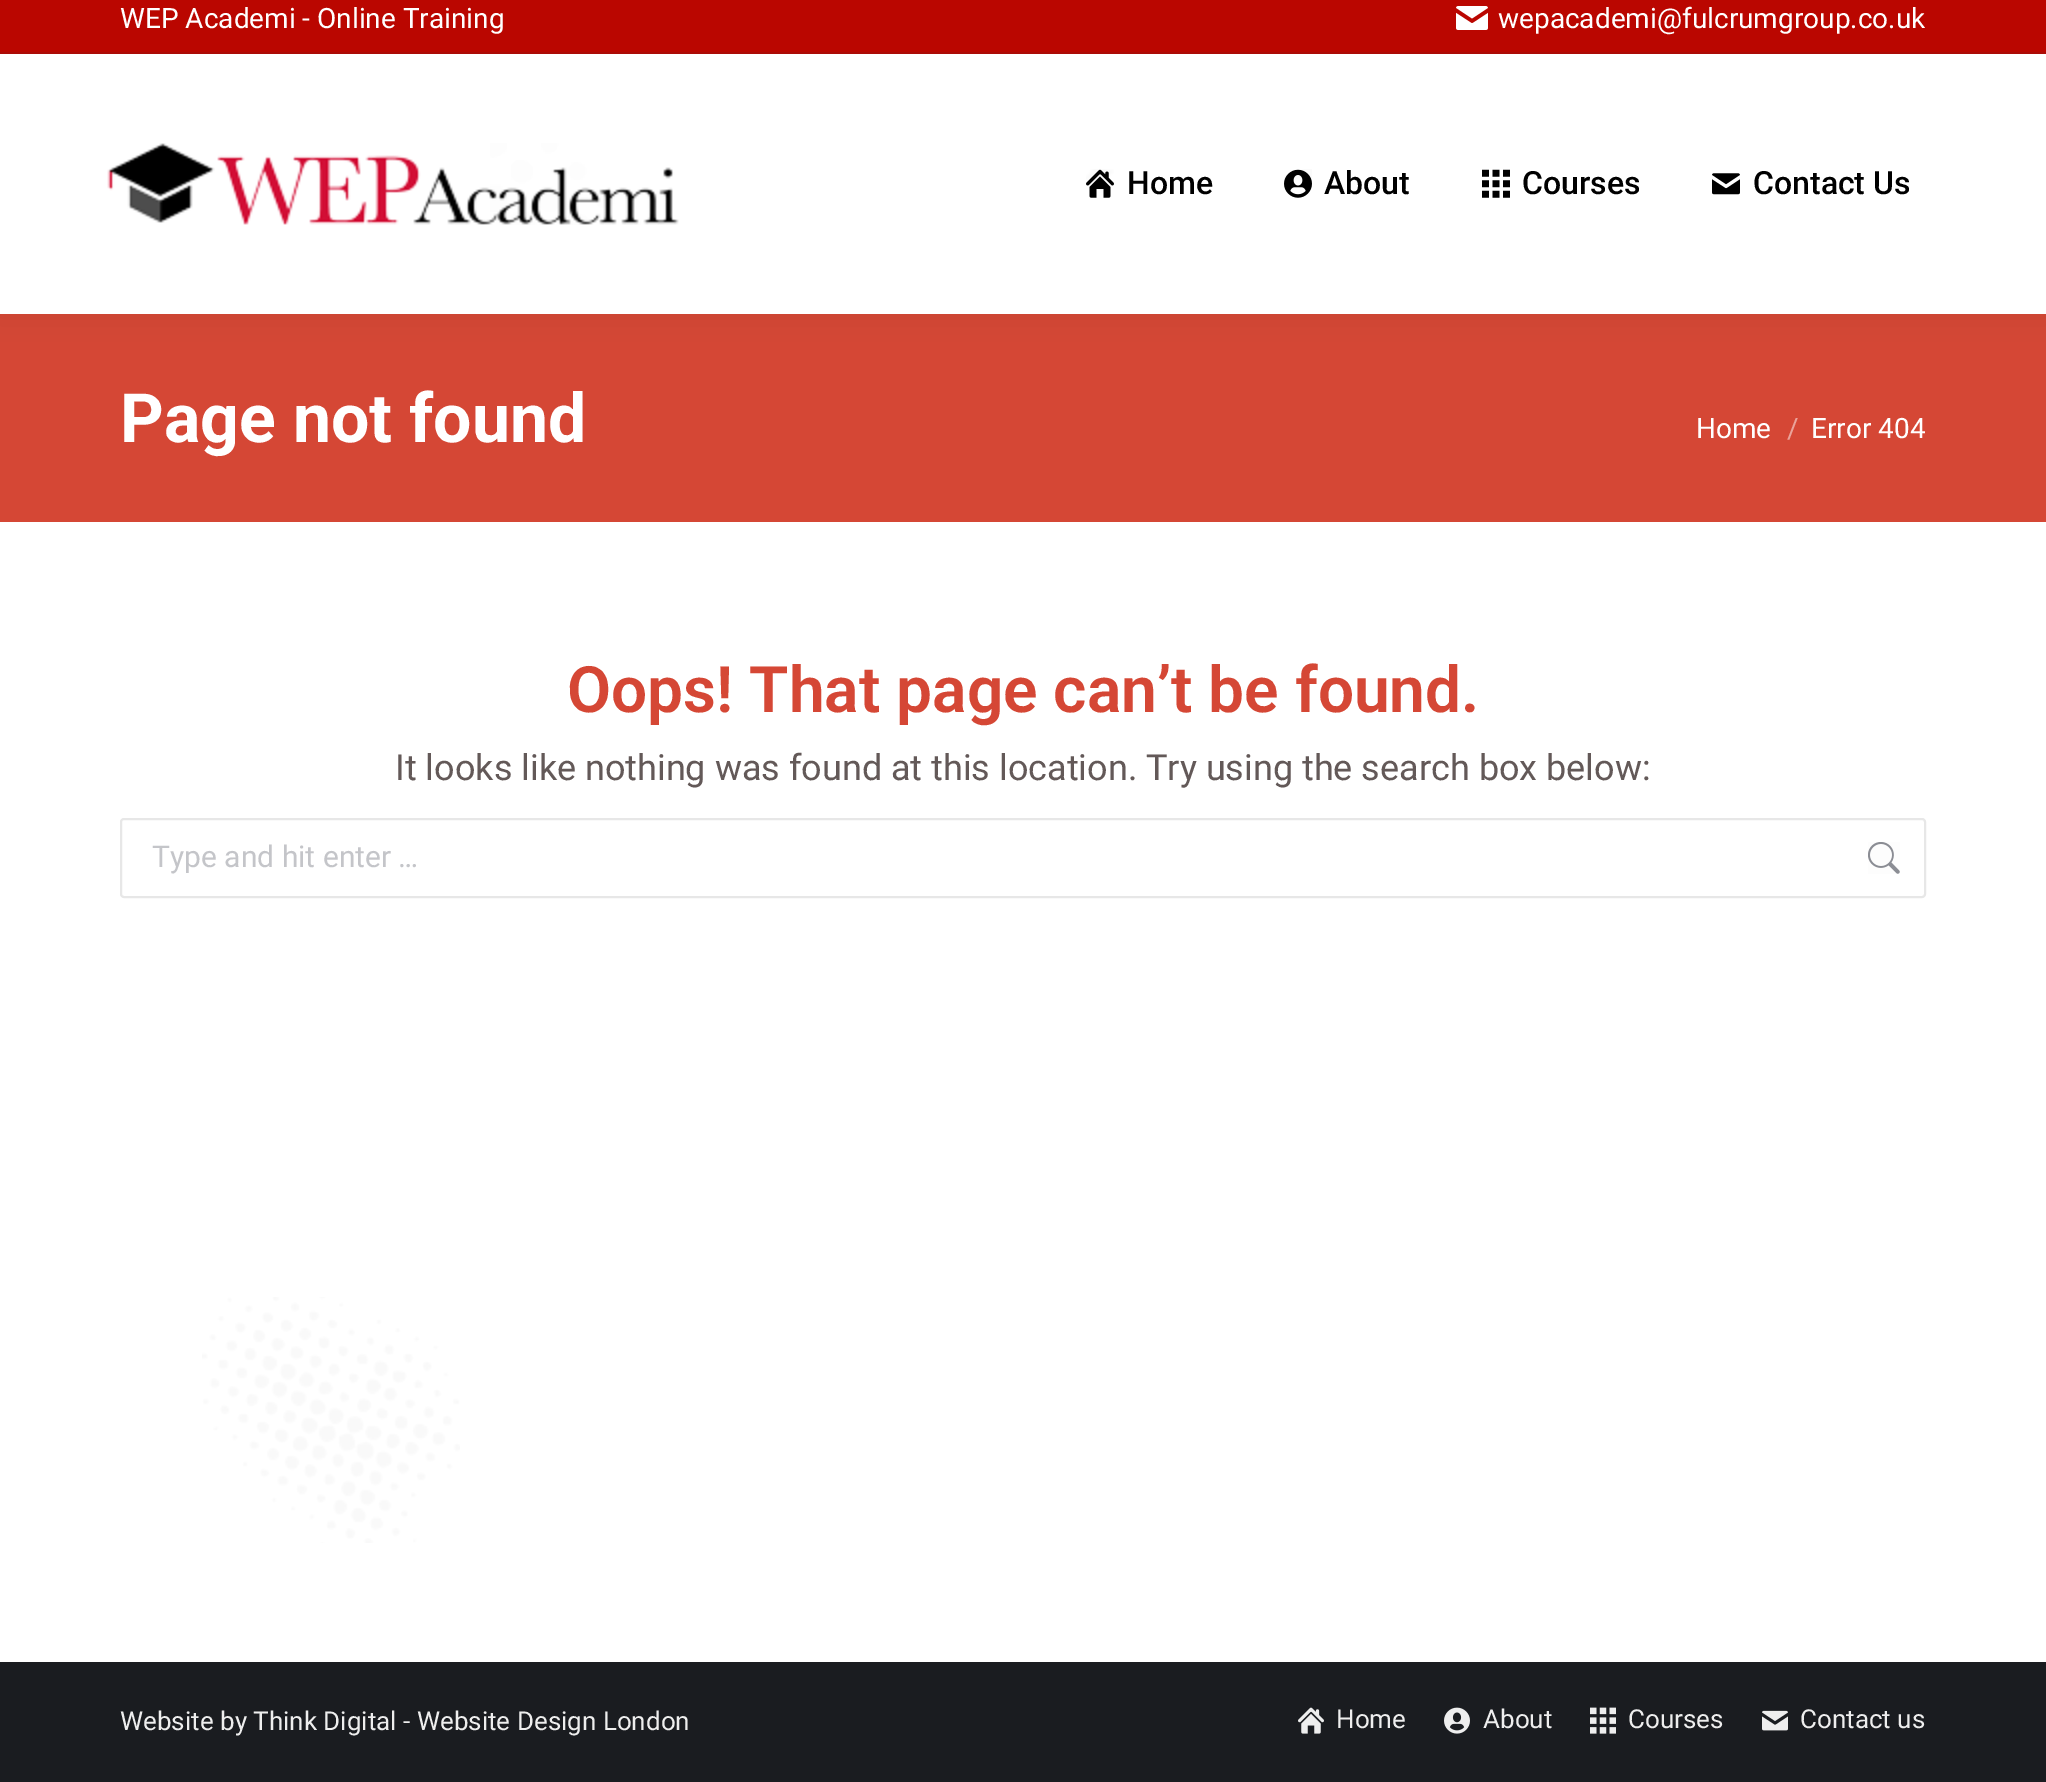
%!PS-Adobe-3.0
%%BoundingBox: 0 0 2046 1782
%%LanguageLevel: 3
%%Pages: 1
%%EndComments
%%BeginProlog
/setink { 3 { 255 div 3 1 roll } repeat setrgbcolor } def
/usefont { [ exch dup neg 0 0 3 -1 roll 0 0 ] selectfont } def
/drawtext { setink usefont moveto show } def
/fillbox { setink rectfill } def
/setalpha { dup .setfillconstantalpha .setstrokeconstantalpha } def
/rrect { 5 dict begin { /r /h /w /y /x } { exch def } forall
  x r add y moveto x w add y 2 copy h add r arct x w add y h add x 1 index r arct
  x y h add x y r arct x y 2 copy exch w add exch r arct closepath end } def
/softshadow { 12 dict begin { /a /b /q /h /w /y /x } { exch def } forall gsave /was 0 def
  9 -2 -9 { dup b mul 4 div /e exch def 1 sub .425 mul 2.718 exch exp 1 add a .99 .min exch div /now exch def
    1 1 now sub 1 was sub div sub setalpha /was now def
    w h .min e 2 mul add 0 gt { x e sub y e sub w e 2 mul add h e 2 mul add
      q e add b .6 mul add w h .min 2 div e add .min 0 .max rrect fill } if } for grestore end } def
/drawimage { 5 dict begin { /h /w /y /x /name } { exch def } forall
  gsave x y translate w h scale
  w h 8 [w 0 0 h 0 0] name (r) file false 3 colorimage grestore end } def
%%EndProlog
%%BeginSetup
<< /PageSize [2046 1782] /PageUsesTransparency true >> setpagedevice
%%EndSetup
%%Page: 1 1
0 .pushpdf14devicefilter
0 1782 translate 1 -1 scale
4 setmiterlimit
0 0 2046 1782 255 255 255 fillbox
(assets/img1.rgb) 202 1297 258 246 drawimage
0 314 2046 208 213 71 53 fillbox
0 0 0 setink
-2 -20 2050 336 0 15 0.07 softshadow
0 54 2046 260 255 255 255 fillbox
0 0 2046 52 186 6 0 fillbox
(WEP Academi - Online Training) 120 28 /Roboto-Regular 28 255 255 255 drawtext
(assets/img2.rgb) 1456 6 32 24 drawimage
(wepacademi@fulcrumgroup.co.uk) 1498 28 /Roboto-Regular 28 255 255 255 drawtext
0 52 2046 2 171 11 6 fillbox
(assets/img3.rgb) 107 143 572 82 drawimage
(assets/img4.rgb) 1086 169 28 29 drawimage
(Home) 1127 194 /Roboto-Medium 32 0 0 0 drawtext
(assets/img5.rgb) 1284 169 28 29 drawimage
(About) 1324 194 /Roboto-Medium 32 0 0 0 drawtext
(assets/img6.rgb) 1482 169 28 29 drawimage
(Courses) 1522 194 /Roboto-Medium 32 0 0 0 drawtext
(assets/img7.rgb) 1712 173 28 22 drawimage
(Contact Us) 1753 194 /Roboto-Medium 32 0 0 0 drawtext
(Page not found) 120 442 /Roboto-Bold 68 255 255 255 drawtext
(Home) 1696 438 /Roboto-Regular 28 255 255 255 drawtext
(/) 1787 438 /Roboto-Regular 28 234 163 154 drawtext
(Error 404) 1811 438 /Roboto-Regular 28 255 255 255 drawtext
(Oops! That page can’t be found.) 567 712 /Roboto-SemiBold 64 213 71 53 drawtext
(It looks like nothing was found at this location. Try using the search box below:) 395 780 /Roboto-Regular 36 99 89 88 drawtext
231 231 231 setink
2 setlinewidth
121 819 1804 78 3 rrect stroke
(Type and hit enter …) 152 867 /Roboto-Regular 30 196 197 201 drawtext
(assets/img8.rgb) 1868 842 32 32 drawimage
0 1662 2046 120 26 28 32 fillbox
(Website by Think Digital - Website Design London) 120 1730 /Roboto-Regular 26 238 238 238 drawtext
(assets/img9.rgb) 1298 1707 26 27 drawimage
(Home) 1336 1728 /Roboto-Regular 26 238 238 238 drawtext
(assets/img10.rgb) 1444 1707 26 27 drawimage
(About) 1483 1728 /Roboto-Regular 26 238 238 238 drawtext
(assets/img11.rgb) 1590 1707 26 27 drawimage
(Courses) 1628 1728 /Roboto-Regular 26 238 238 238 drawtext
(assets/img12.rgb) 1762 1710 26 21 drawimage
(Contact us) 1800 1728 /Roboto-Regular 26 238 238 238 drawtext
.poppdf14devicefilter showpage
%%EOF
